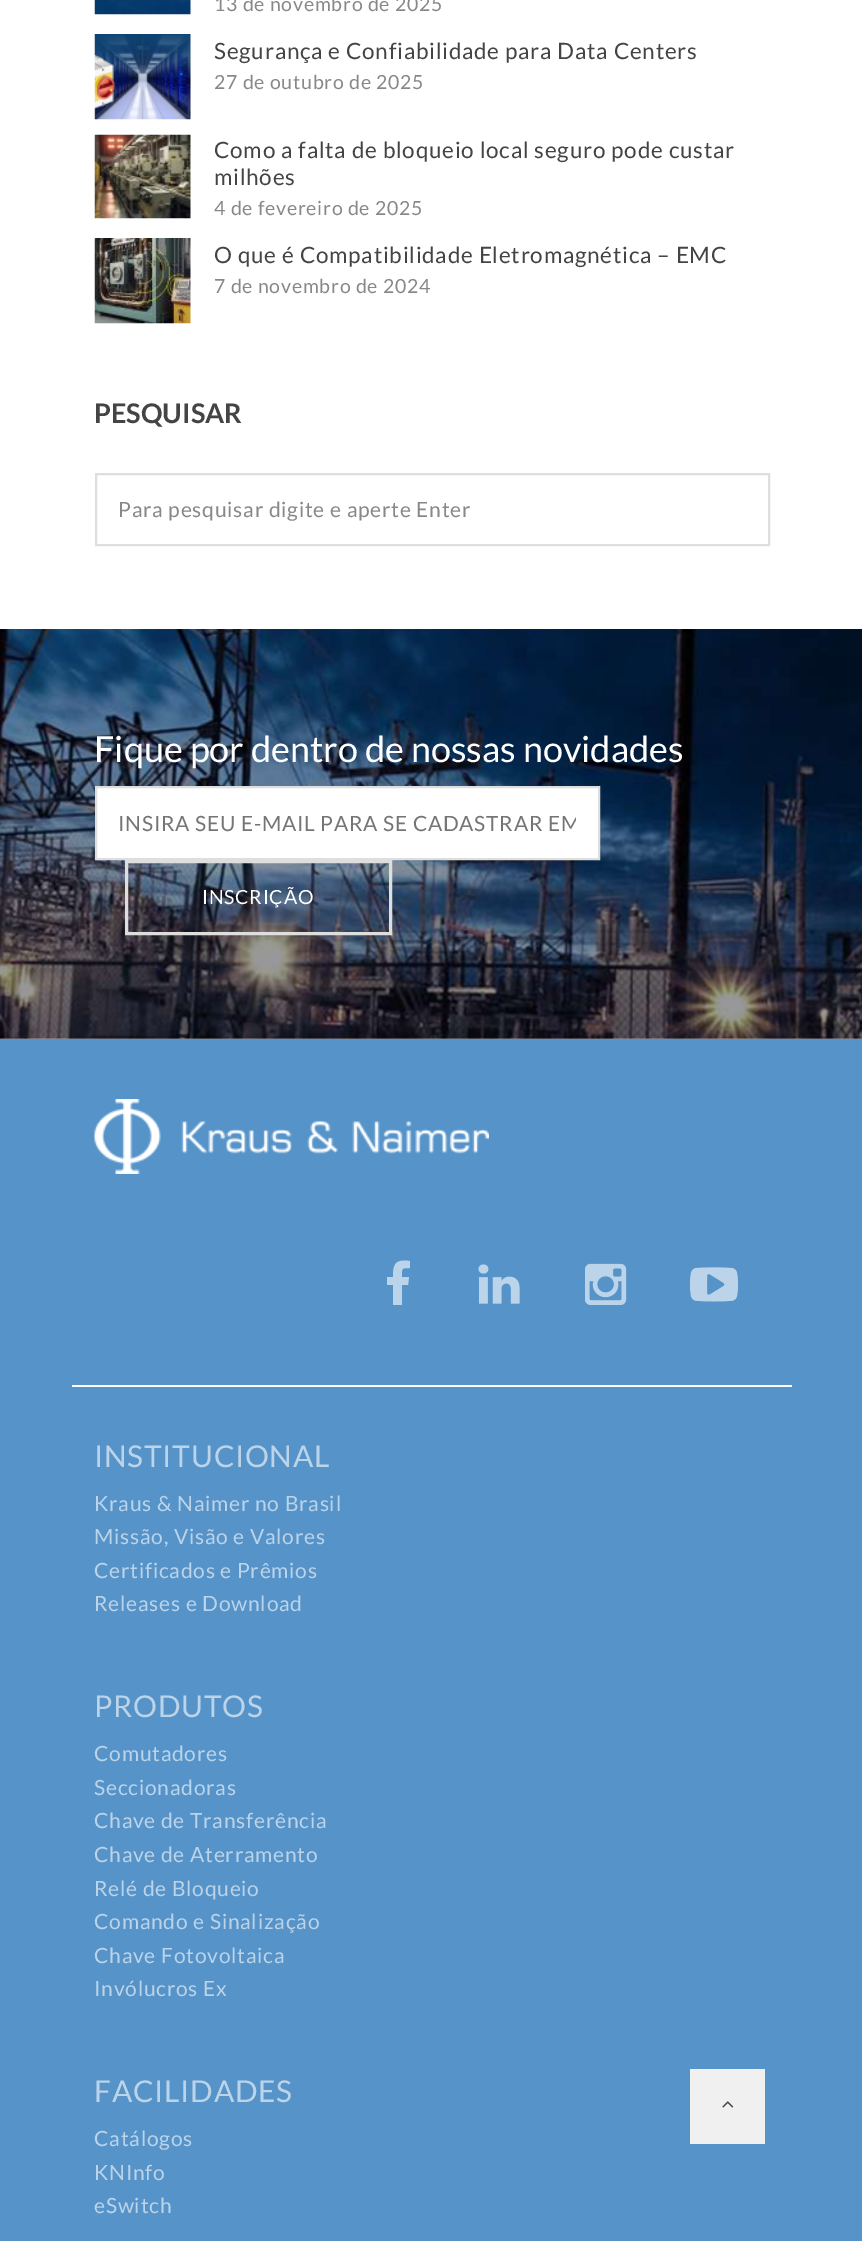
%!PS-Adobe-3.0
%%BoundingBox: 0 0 862 2241
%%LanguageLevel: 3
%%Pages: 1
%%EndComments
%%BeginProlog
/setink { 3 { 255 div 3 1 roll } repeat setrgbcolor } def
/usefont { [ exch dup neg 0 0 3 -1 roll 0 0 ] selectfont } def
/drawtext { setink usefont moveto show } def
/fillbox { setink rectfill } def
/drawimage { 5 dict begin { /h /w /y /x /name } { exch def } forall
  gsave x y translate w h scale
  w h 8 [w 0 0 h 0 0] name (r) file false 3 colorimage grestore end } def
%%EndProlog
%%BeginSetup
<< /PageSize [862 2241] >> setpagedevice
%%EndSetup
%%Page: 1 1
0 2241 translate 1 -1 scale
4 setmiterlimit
0 0 862 2241 255 255 255 fillbox
(assets/img1.rgb) 94 0 97 15 drawimage
/Lato-Regular 19.5 usefont
136 136 136 setink
214 11 moveto 0.75 0 (13 de novembro de 2025) ashow
(assets/img2.rgb) 94 34 97 86 drawimage
/Lato-Regular 22.5 usefont
68 68 68 setink
214 59 moveto 0.75 0 (Segurança e Confiabilidade para Data Centers) ashow
/Lato-Regular 19.5 usefont
136 136 136 setink
214 89 moveto 0.75 0 (27 de outubro de 2025) ashow
(assets/img3.rgb) 94 134 97 85 drawimage
/Lato-Regular 22.5 usefont
68 68 68 setink
214 158 moveto 0.75 0 (Como a falta de bloqueio local seguro pode custar) ashow
214 185 moveto 0.75 0 (milhões) ashow
/Lato-Regular 19.5 usefont
136 136 136 setink
214 215 moveto 0.75 0 (4 de fevereiro de 2025) ashow
(assets/img4.rgb) 94 238 97 86 drawimage
/Lato-Regular 22.5 usefont
68 68 68 setink
214 263 moveto 0.75 0 (O que é Compatibilidade Eletromagnética – EMC) ashow
/Lato-Regular 19.5 usefont
136 136 136 setink
214 293 moveto 0.75 0 (7 de novembro de 2024) ashow
(PESQUISAR) 94 423 /Lato-Bold 27 68 68 68 drawtext
222 222 222 setink
2 setlinewidth
96 474 673 71 rectstroke
/Lato-Regular 21 usefont
136 136 136 setink
118 517 moveto 0.75 0 (Para pesquisar digite e aperte Enter) ashow
(assets/img5.rgb) 0 629 862 410 drawimage
(Fique por dentro de nossas novidades) 94 762 /Lato-Regular 36 255 255 255 drawtext
96 787 moveto 599 787 lineto 599 859 lineto 96 859 lineto closepath gsave fill grestore
222 222 222 setink
stroke
gsave
119 810 457 26 rectclip
/Lato-Regular 21 usefont
117 117 117 setink
118 831 moveto 0.75 0 (INSIRA SEU E-MAIL PARA SE CADASTRAR EM) ashow
grestore
3 setlinewidth
126.5 861.5 264 72 rectstroke
/Lato-Regular 19.5 usefont
255 255 255 setink
202 904 moveto 0.75 0 (INSCRIÇÃO) ashow
0 1039 862 1202 85 147 201 fillbox
72 1385 720 2 255 255 255 fillbox
(assets/img6.rgb) 94 1099 395 75 drawimage
187 212 233 setink
410 1261 moveto 410 1268 lineto 401 1268 402 1268 402 1277 curveto 409 1277 lineto 408 1285 lineto 402 1285 lineto 402 1305 lineto 393 1305 lineto 393 1285 lineto 387 1285 lineto 387 1277 lineto 393 1277 lineto 393 1264 395 1259 410 1261 curveto closepath fill
(assets/img7.rgb) 478 1264 42 40 drawimage
(assets/img8.rgb) 585 1263 42 42 drawimage
(assets/img9.rgb) 690 1267 48 35 drawimage
/Lato-Regular 30 usefont
94 1467 moveto 0.75 0 (INSTITUCIONAL) ashow
/Lato-Regular 21 usefont
94 1511 moveto 0.75 0 (Kraus & Naimer no Brasil) ashow
94 1544 moveto 0.75 0 (Missão, Visão e Valores) ashow
94 1578 moveto 0.75 0 (Certificados e Prêmios) ashow
94 1611 moveto 0.75 0 (Releases e Download) ashow
/Lato-Regular 30 usefont
94 1717 moveto 0.75 0 (PRODUTOS) ashow
/Lato-Regular 21 usefont
94 1761 moveto 0.75 0 (Comutadores) ashow
94 1795 moveto 0.75 0 (Seccionadoras) ashow
94 1828 moveto 0.75 0 (Chave de Transferência) ashow
94 1862 moveto 0.75 0 (Chave de Aterramento) ashow
94 1896 moveto 0.75 0 (Relé de Bloqueio) ashow
94 1929 moveto 0.75 0 (Comando e Sinalização) ashow
94 1963 moveto 0.75 0 (Chave Fotovoltaica) ashow
94 1996 moveto 0.75 0 (Invólucros Ex) ashow
/Lato-Regular 30 usefont
94 2102 moveto 0.75 0 (FACILIDADES) ashow
/Lato-Regular 21 usefont
94 2146 moveto 0.75 0 (Catálogos) ashow
94 2180 moveto 0.75 0 (KNInfo) ashow
94 2213 moveto 0.75 0 (eSwitch) ashow
690 2069 75 75 240 240 240 fillbox
(assets/img10.rgb) 722 2101 12 7 drawimage
showpage
%%EOF
